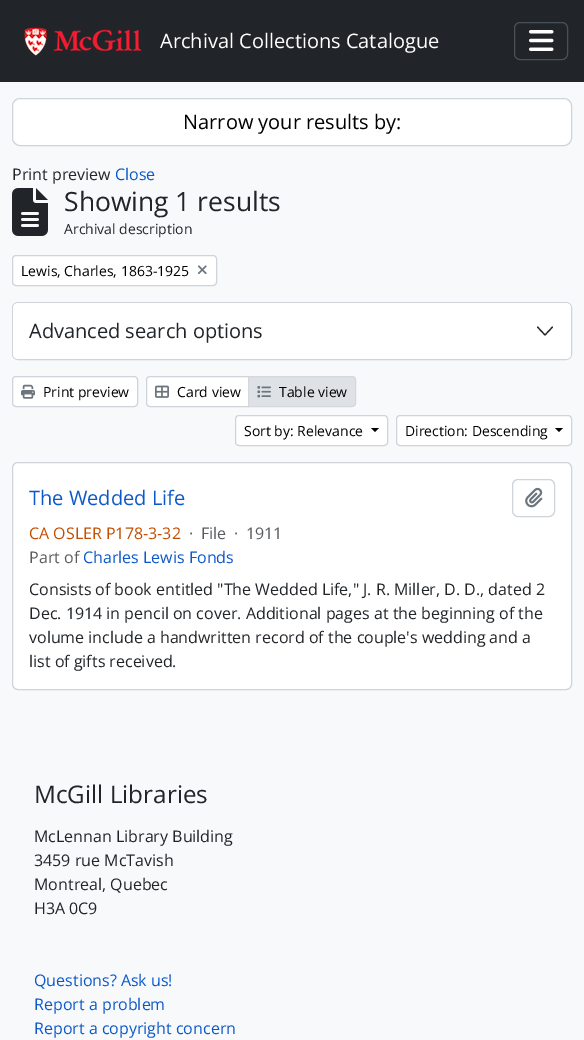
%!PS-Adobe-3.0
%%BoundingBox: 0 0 584 1040
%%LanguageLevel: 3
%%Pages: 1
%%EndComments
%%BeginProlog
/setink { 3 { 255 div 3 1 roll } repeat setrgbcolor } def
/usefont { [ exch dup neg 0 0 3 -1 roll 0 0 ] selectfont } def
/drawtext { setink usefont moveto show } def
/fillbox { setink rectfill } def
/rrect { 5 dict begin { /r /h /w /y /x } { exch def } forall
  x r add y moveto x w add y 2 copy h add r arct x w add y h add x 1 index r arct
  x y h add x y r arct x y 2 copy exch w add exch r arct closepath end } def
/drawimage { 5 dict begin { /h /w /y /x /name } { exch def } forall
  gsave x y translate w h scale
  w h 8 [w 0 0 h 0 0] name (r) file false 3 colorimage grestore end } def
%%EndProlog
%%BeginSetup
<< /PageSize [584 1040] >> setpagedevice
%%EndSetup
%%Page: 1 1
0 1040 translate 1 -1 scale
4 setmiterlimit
0 0 584 1040 248 249 250 fillbox
0 0 584 82 33 37 41 fillbox
(assets/img1.rgb) 24 27 118 29 drawimage
(Archival Collections Catalogue) 160 48 /OpenSans-Regular 20 255 255 255 drawtext
73 80 87 setink
514.5 22.5 53 37 5.5 rrect stroke
(assets/img2.rgb) 529 30 25 21 drawimage
255 255 255 setink
12.5 98.5 559 47 7.5 rrect gsave fill grestore
206 212 218 setink
stroke
(Narrow your results by:) 183 129 /OpenSans-Regular 20 0 0 0 drawtext
(Print preview) 12 180 /OpenSans-Regular 16 33 37 41 drawtext
(Close) 115 180 /OpenSans-Regular 16 10 88 202 drawtext
(assets/img3.rgb) 12 188 36 48 drawimage
(Showing 1 results) 64 211 /OpenSans-Regular 26.5 33 37 41 drawtext
(Archival description) 64 234 /OpenSans-Regular 14 33 37 41 drawtext
255 255 255 setink
12.5 255.5 204 30 3.5 rrect gsave fill grestore
206 212 218 setink
stroke
(Lewis, Charles, 1863-1925) 21 276 /OpenSans-Regular 14 0 0 0 drawtext
(assets/img4.rgb) 197 265 10 10 drawimage
206 212 218 setink
12.5 302.5 559 57 5.5 rrect stroke
255 255 255 setink
13 303 558 56 5 rrect fill
(Advanced search options) 29 338 /OpenSans-Regular 20 33 37 41 drawtext
1.2 setlinewidth
1 setlinecap
1 setlinejoin
537.5 327 moveto 545 335 lineto 552.5 327 lineto stroke
255 255 255 setink
12.5 376.5 125 30 3.5 rrect gsave fill grestore
206 212 218 setink
1 setlinewidth
0 setlinecap
0 setlinejoin
stroke
(assets/img5.rgb) 21 384 14 15 drawimage
(Print preview) 43 397 /OpenSans-Regular 14 0 0 0 drawtext
255 255 255 setink
150 376.5 moveto 248.5 376.5 lineto 248.5 406.5 lineto 150 406.5 lineto 148 406.5 146.5 405 146.5 403 curveto 146.5 380 lineto 146.5 378 148 376.5 150 376.5 curveto closepath gsave fill grestore
206 212 218 setink
stroke
(assets/img6.rgb) 155 385 14 13 drawimage
(Card view) 177 397 /OpenSans-Regular 14 0 0 0 drawtext
222 226 230 setink
248.5 376.5 moveto 352 376.5 lineto 354 376.5 355.5 378 355.5 380 curveto 355.5 403 lineto 355.5 405 354 406.5 352 406.5 curveto 248.5 406.5 lineto closepath gsave fill grestore
211 216 222 setink
stroke
(assets/img7.rgb) 257 386 14 12 drawimage
(Table view) 279 397 /OpenSans-Regular 14 0 0 0 drawtext
255 255 255 setink
235.5 415.5 152 30 3.5 rrect gsave fill grestore
206 212 218 setink
stroke
(Sort by: Relevance) 244 436 /OpenSans-Regular 14 0 0 0 drawtext
371 428 moveto 379 428 lineto 375 432 lineto closepath fill
255 255 255 setink
396.5 415.5 175 30 3.5 rrect gsave fill grestore
206 212 218 setink
stroke
(Direction: Descending) 405 436 /OpenSans-Regular 14 0 0 0 drawtext
555 428 moveto 563 428 lineto 559 432 lineto closepath fill
255 255 255 setink
12.5 462.5 559 227 5.5 rrect gsave fill grestore
206 212 218 setink
stroke
(The Wedded Life) 29 505 /OpenSans-Regular 20 10 88 202 drawtext
206 212 218 setink
512.5 479.5 42 37 5.5 rrect stroke
(assets/img8.rgb) 525 487 18 21 drawimage
(CA OSLER P178-3-32) 29 539 /OpenSans-Regular 16 196 78 0 drawtext
(·) 189 539 /OpenSans-Regular 16 89 92 95 drawtext
(File) 201 539 /OpenSans-Regular 16 89 92 95 drawtext
(·) 234 539 /OpenSans-Regular 16 89 92 95 drawtext
(1911) 246 539 /OpenSans-Regular 16 89 92 95 drawtext
(Part of) 29 563 /OpenSans-Regular 16 89 92 95 drawtext
(Charles Lewis Fonds) 83 563 /OpenSans-Regular 16 10 88 202 drawtext
(Consists of book entitled "The Wedded Life," J. R. Miller, D. D., dated 2) 29 595 /OpenSans-Regular 16 33 37 41 drawtext
(Dec. 1914 in pencil on cover. Additional pages at the beginning of the) 29 619 /OpenSans-Regular 16 33 37 41 drawtext
(volume include a handwritten record of the couple's wedding and a) 29 643 /OpenSans-Regular 16 33 37 41 drawtext
(list of gifts received.) 29 667 /OpenSans-Regular 16 33 37 41 drawtext
(McGill Libraries) 34 803 /OpenSans-Regular 24.25 33 37 41 drawtext
(McLennan Library Building) 34 842 /OpenSans-Regular 16 33 37 41 drawtext
(3459 rue McTavish) 34 866 /OpenSans-Regular 16 33 37 41 drawtext
(Montreal, Quebec) 34 890 /OpenSans-Regular 16 33 37 41 drawtext
(H3A 0C9) 34 914 /OpenSans-Regular 16 33 37 41 drawtext
(Questions? Ask us!) 34 986 /OpenSans-Regular 16 10 88 202 drawtext
(Report a problem) 34 1010 /OpenSans-Regular 16 10 88 202 drawtext
(Report a copyright concern) 34 1034 /OpenSans-Regular 16 10 88 202 drawtext
showpage
%%EOF
